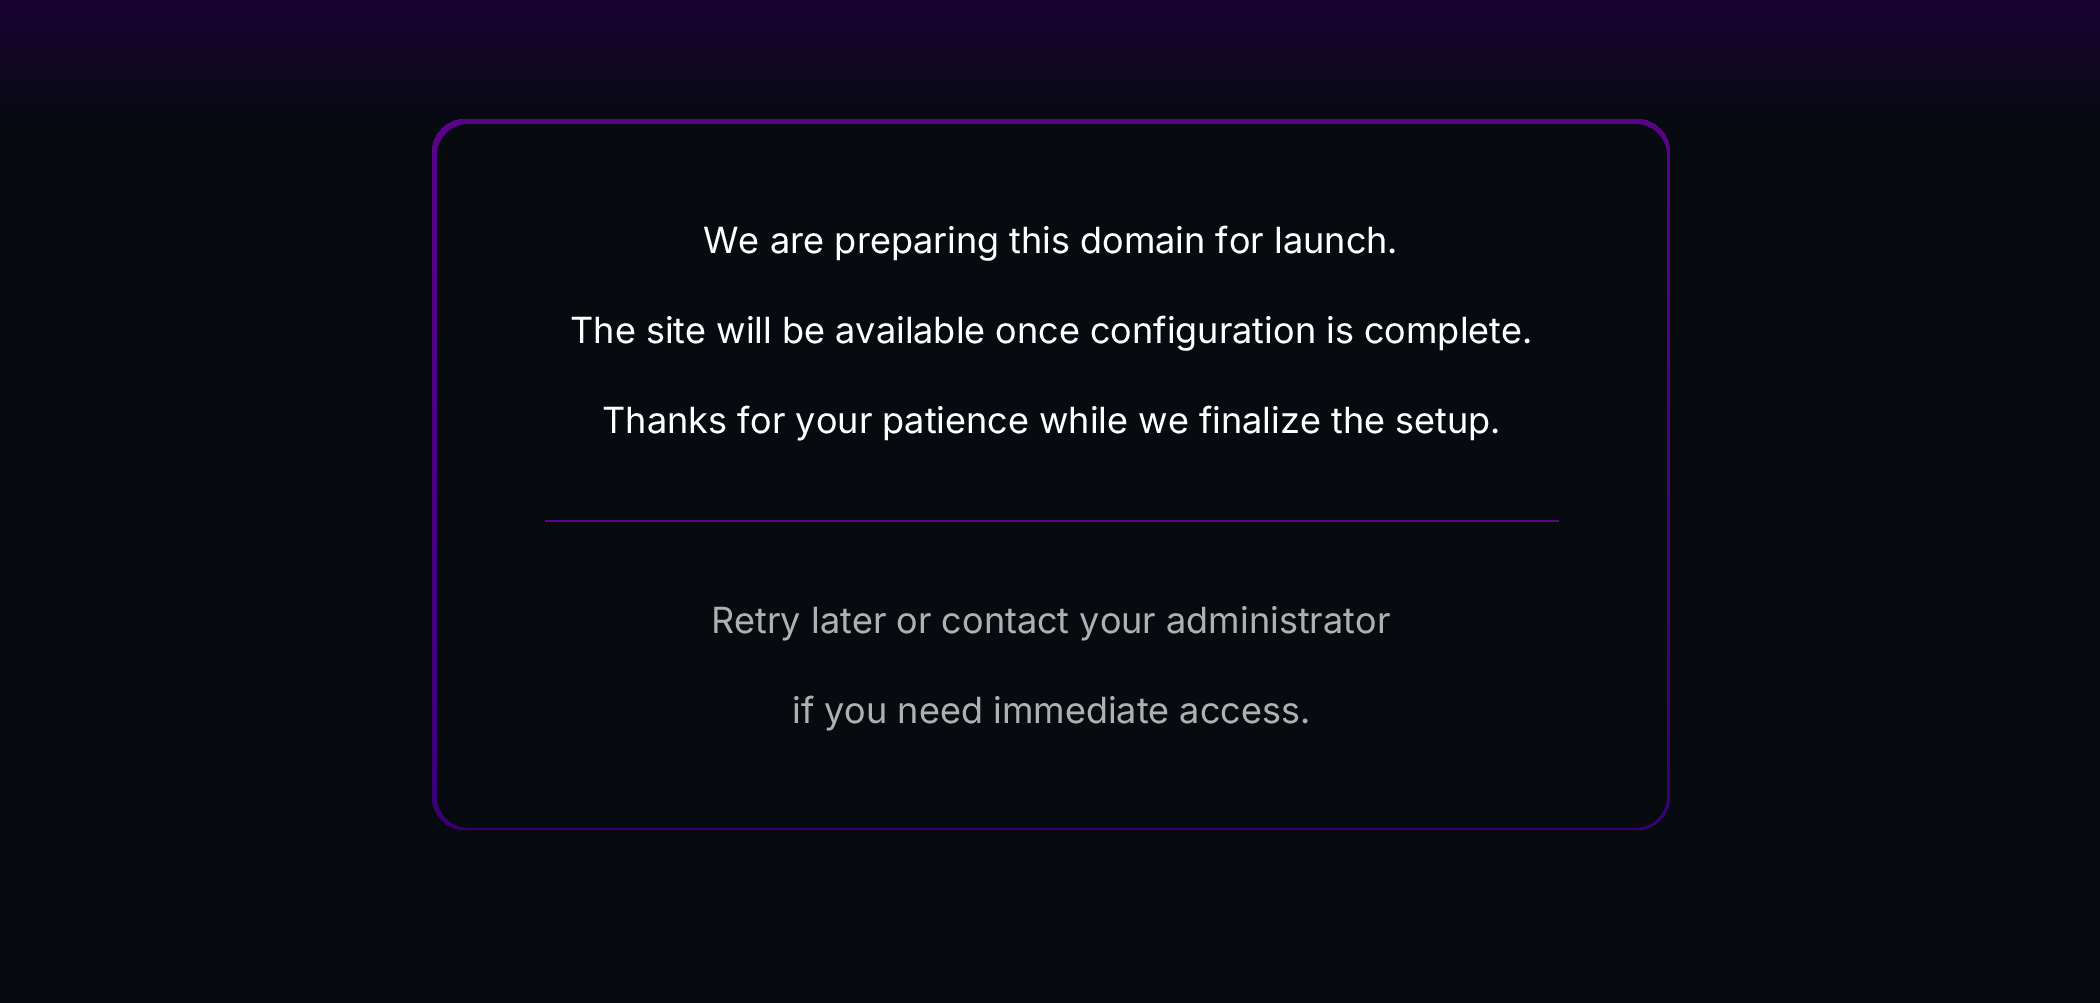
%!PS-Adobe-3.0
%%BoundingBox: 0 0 2100 1003
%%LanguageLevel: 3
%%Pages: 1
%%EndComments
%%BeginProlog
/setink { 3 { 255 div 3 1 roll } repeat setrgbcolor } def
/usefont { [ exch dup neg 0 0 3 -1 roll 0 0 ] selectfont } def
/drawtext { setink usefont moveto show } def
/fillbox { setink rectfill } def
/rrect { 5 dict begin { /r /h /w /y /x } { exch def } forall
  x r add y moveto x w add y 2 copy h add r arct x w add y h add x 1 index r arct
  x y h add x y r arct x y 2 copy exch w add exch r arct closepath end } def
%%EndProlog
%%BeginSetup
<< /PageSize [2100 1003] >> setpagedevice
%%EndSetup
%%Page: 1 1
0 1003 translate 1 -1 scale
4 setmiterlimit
0 0 2100 1003 255 255 255 fillbox
gsave 0 0 moveto 2100 0 lineto 2100 1003 lineto 0 1003 lineto closepath clip newpath
<< /ShadingType 2 /ColorSpace /DeviceRGB /Coords [1051 -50 1051 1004] /Extend [true true] /Function << /FunctionType 3 /Domain [0 1] /Functions [<< /FunctionType 2 /Domain [0 1] /C0 [0.129 0 0.259] /C1 [0.027 0.039 0.059] /N 1 >> << /FunctionType 2 /Domain [0 1] /C0 [0.027 0.039 0.059] /C1 [0.027 0.039 0.059] /N 1 >>] /Bounds [0.17] /Encode [0 1 0 1] >> >> shfill grestore
gsave 432 119 1238 711 34 rrect clip newpath
<< /ShadingType 2 /ColorSpace /DeviceRGB /Coords [1051 119 1051 830] /Extend [true true] /Function << /FunctionType 2 /Domain [0 1] /C0 [0.353 0.016 0.537] /C1 [0.224 0 0.463] /N 1 >> >> shfill grestore
7 10 15 setink
437 124 1230 704 32 rrect fill
(We are preparing this domain for launch.) 703 253 /Inter-Regular 36 255 255 255 drawtext
(The site will be available once configuration is complete.) 570 343 /Inter-Regular 36 255 255 255 drawtext
(Thanks for your patience while we finalize the setup.) 602 433 /Inter-Regular 36 255 255 255 drawtext
545 520 1014 2 90 4 137 fillbox
(Retry later or contact your administrator) 711 633 /Inter-Regular 36 176 176 176 drawtext
(if you need immediate access.) 792 723 /Inter-Regular 36 176 176 176 drawtext
showpage
%%EOF
